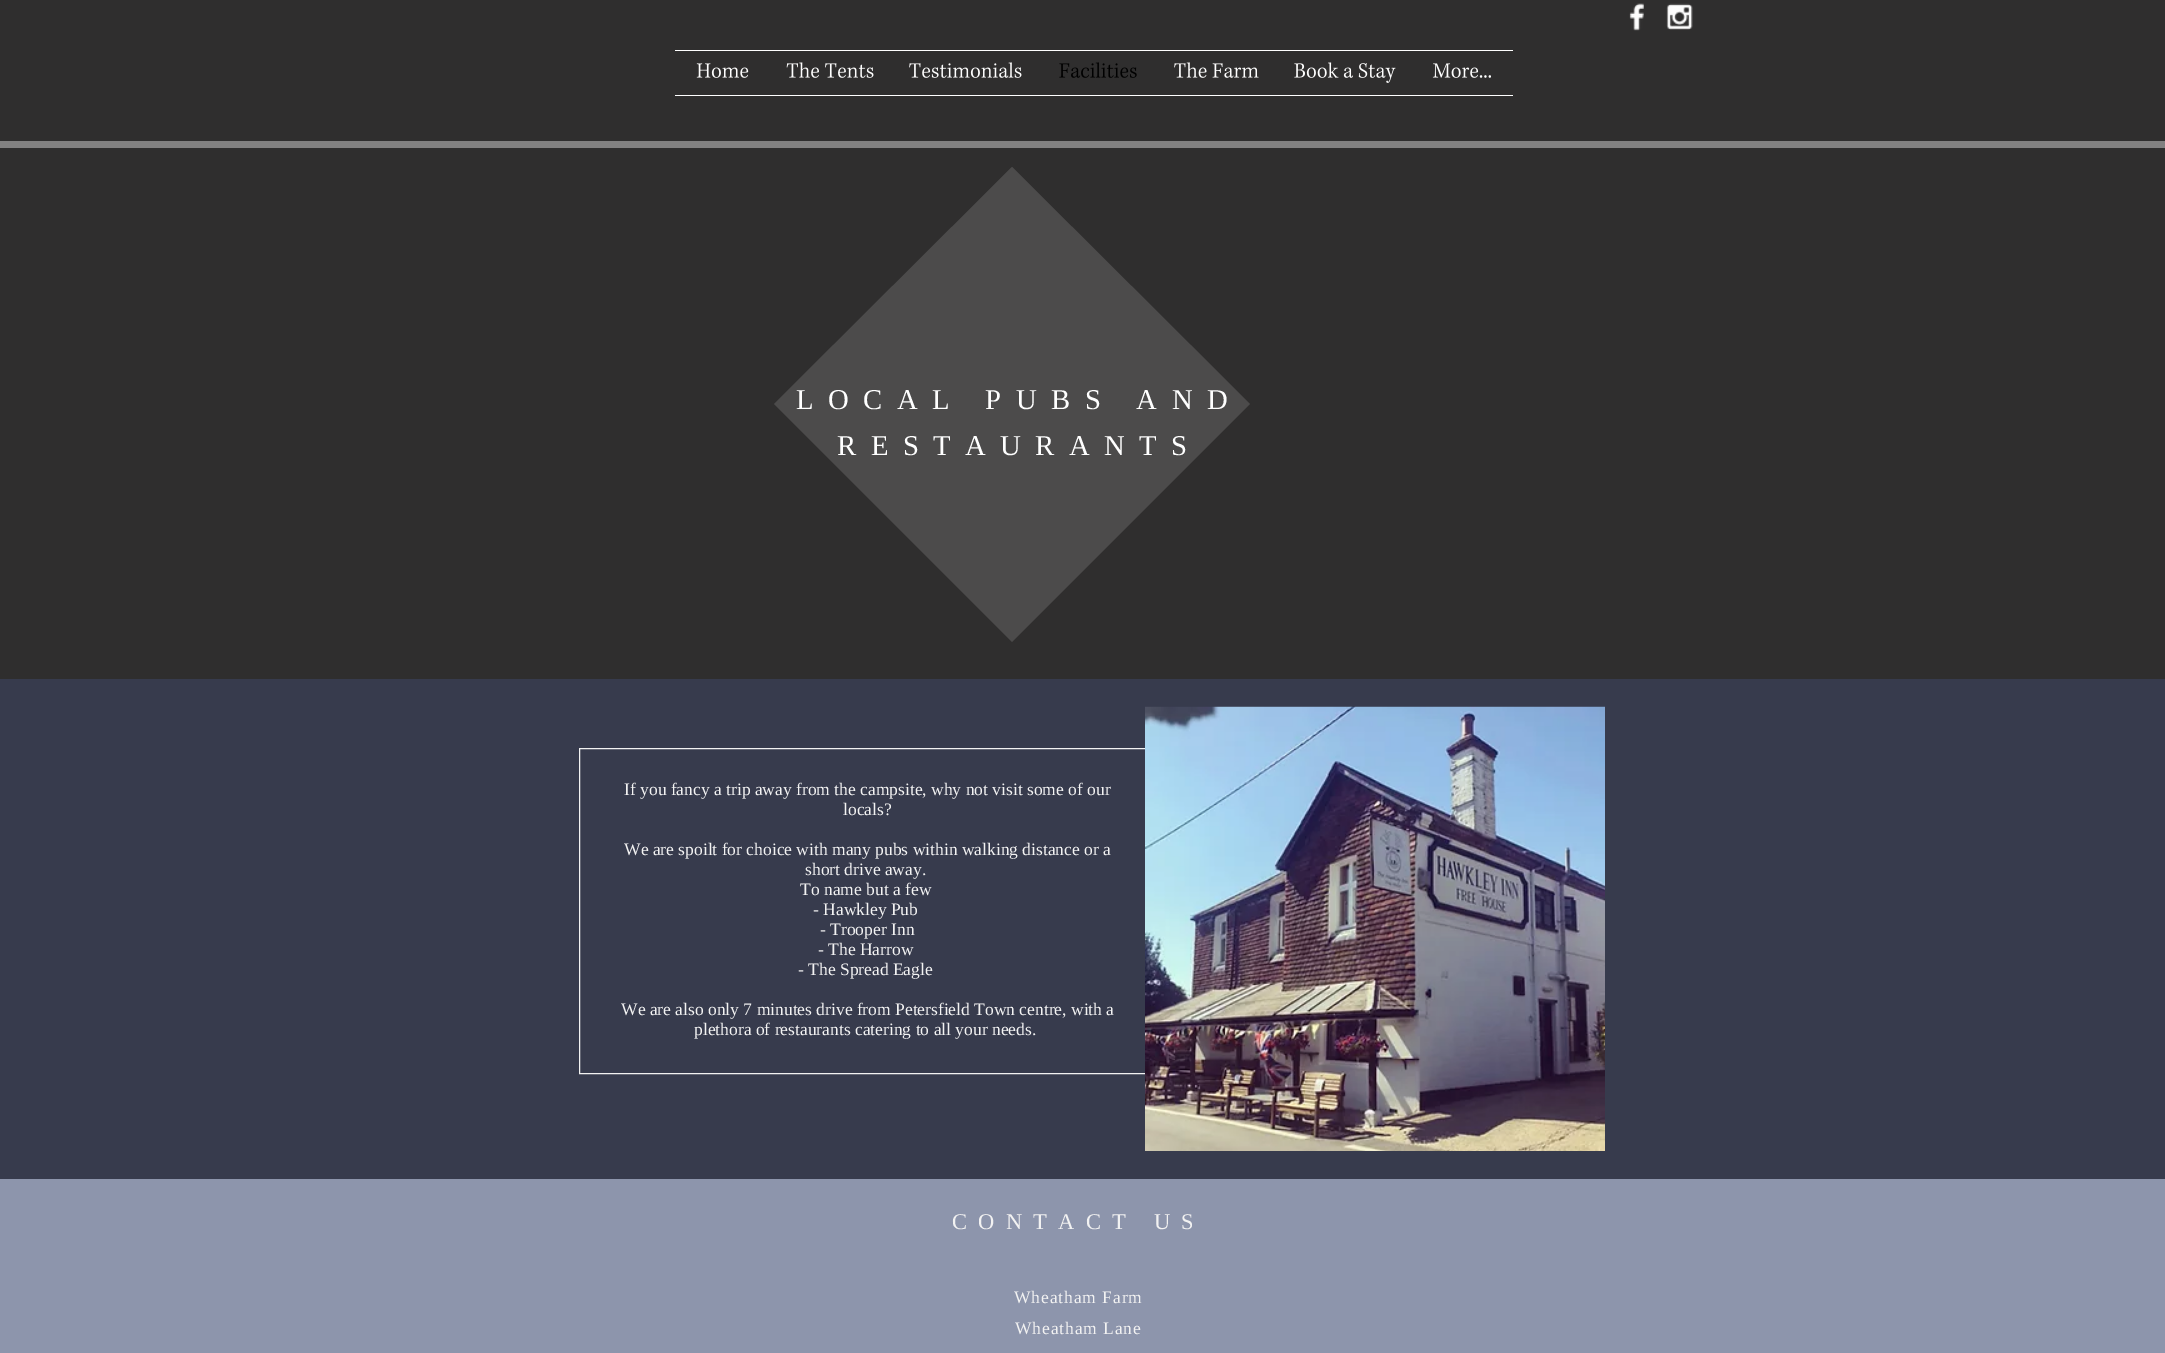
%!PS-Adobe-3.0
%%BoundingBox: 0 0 2165 1353
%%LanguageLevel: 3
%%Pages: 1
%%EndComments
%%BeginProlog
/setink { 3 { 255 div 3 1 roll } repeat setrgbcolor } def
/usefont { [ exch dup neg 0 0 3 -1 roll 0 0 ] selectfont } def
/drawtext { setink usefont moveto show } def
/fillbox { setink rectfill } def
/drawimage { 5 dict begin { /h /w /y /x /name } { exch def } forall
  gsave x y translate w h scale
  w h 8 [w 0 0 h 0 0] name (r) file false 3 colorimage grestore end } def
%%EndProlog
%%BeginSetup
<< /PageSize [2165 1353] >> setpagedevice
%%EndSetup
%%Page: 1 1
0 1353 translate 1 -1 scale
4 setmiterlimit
0 0 2165 1353 47 46 46 fillbox
(assets/img1.rgb) 1629 3 15 28 drawimage
(assets/img2.rgb) 1666 3 27 27 drawimage
675 50 838 1 255 255 255 fillbox
675 95 838 1 255 255 255 fillbox
(assets/img3.rgb) 696 63 53 15 drawimage
(assets/img4.rgb) 786 62 88 16 drawimage
(assets/img5.rgb) 909 62 113 16 drawimage
(assets/img6.rgb) 1059 62 78 16 drawimage
(assets/img7.rgb) 1174 62 85 16 drawimage
(assets/img8.rgb) 1294 62 102 21 drawimage
(assets/img9.rgb) 1432 63 59 15 drawimage
0 141 2165 7 130 129 129 fillbox
76 75 75 setink
1250 404 moveto 1012 642 lineto 774 404 lineto 1012 167 lineto closepath fill
/LiberationSerif-Regular 28.75 usefont
255 255 255 setink
796 409 moveto 14.4 0 (LOCAL PUBS AND) ashow
837 455 moveto 14.4 0 (RESTAURANTS) ashow
0 679 2165 500 55 59 77 fillbox
242 242 242 setink
579.5 748.5 991 325 rectstroke
(If you fancy a trip away from the campsite, why not visit some of our) 624 795 /LiberationSerif-Regular 17.5 242 242 242 drawtext
(locals?) 843 815 /LiberationSerif-Regular 17.5 242 242 242 drawtext
(We are spoilt for choice with many pubs within walking distance or a) 624 855 /LiberationSerif-Regular 17.5 242 242 242 drawtext
(short drive away.) 805 875 /LiberationSerif-Regular 17.5 242 242 242 drawtext
(To name but a few) 800 895 /LiberationSerif-Regular 17.5 242 242 242 drawtext
(- Hawkley Pub) 813 915 /LiberationSerif-Regular 17.5 242 242 242 drawtext
(- Trooper Inn) 820 935 /LiberationSerif-Regular 17.5 242 242 242 drawtext
(- The Harrow) 818 955 /LiberationSerif-Regular 17.5 242 242 242 drawtext
(- The Spread Eagle) 798 975 /LiberationSerif-Regular 17.5 242 242 242 drawtext
(We are also only 7 minutes drive from Petersfield Town centre, with a) 621 1015 /LiberationSerif-Regular 17.5 242 242 242 drawtext
(plethora of restaurants catering to all your needs.) 694 1035 /LiberationSerif-Regular 17.5 242 242 242 drawtext
(assets/img10.rgb) 1145 706 460 445 drawimage
0 1179 2165 174 141 149 172 fillbox
/LiberationSerif-Regular 22.5 usefont
242 242 242 setink
952 1229 moveto 11.25 0 (CONTACT US) ashow
/LiberationSerif-Regular 17.5 usefont
1014 1303 moveto 0.9 0 (Wheatham Farm) ashow
1015 1334 moveto 0.9 0 (Wheatham Lane) ashow
showpage
%%EOF
